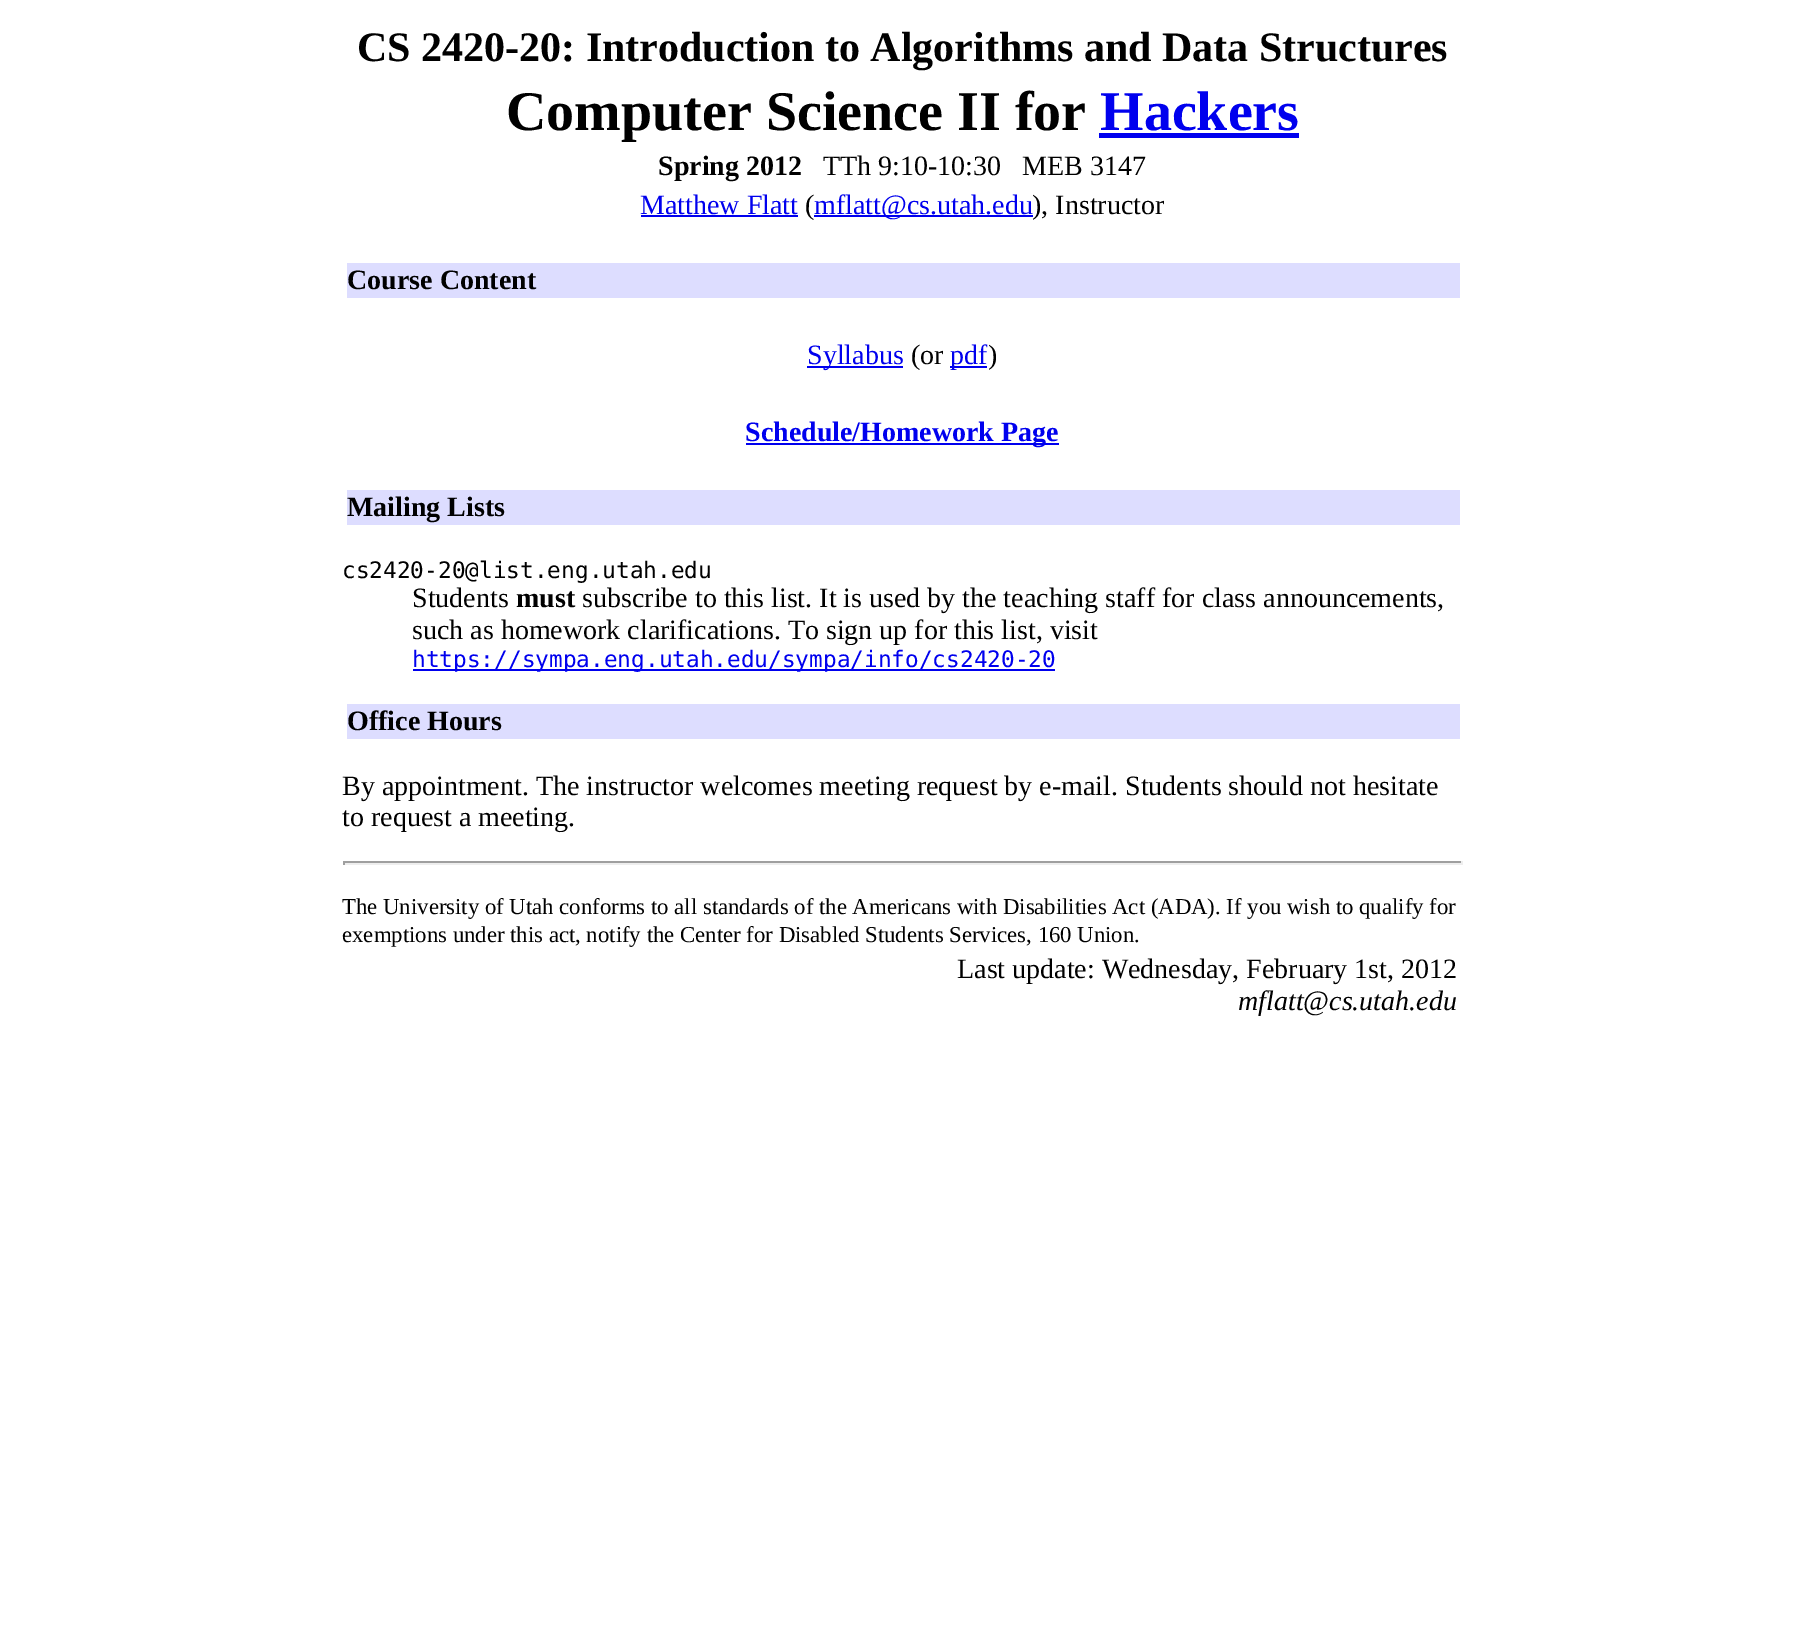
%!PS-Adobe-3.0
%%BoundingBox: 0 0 1804 1629
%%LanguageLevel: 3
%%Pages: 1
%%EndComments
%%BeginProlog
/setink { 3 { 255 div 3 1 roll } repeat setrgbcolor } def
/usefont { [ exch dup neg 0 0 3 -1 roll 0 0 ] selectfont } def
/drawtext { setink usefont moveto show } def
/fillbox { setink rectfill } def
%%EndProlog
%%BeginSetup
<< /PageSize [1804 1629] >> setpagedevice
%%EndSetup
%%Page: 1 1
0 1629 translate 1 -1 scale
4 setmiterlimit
0 0 1804 1629 255 255 255 fillbox
(CS 2420-20: Introduction to Algorithms and Data Structures) 357 61 /LiberationSerif-Bold 42 0 0 0 drawtext
(Computer Science II for) 506 130 /LiberationSerif-Bold 56 0 0 0 drawtext
(Hackers) 1100 130 /LiberationSerif-Bold 56 0 0 238 drawtext
1099 133 200 5 0 0 238 fillbox
(Spring 2012) 658 175 /LiberationSerif-Bold 28 0 0 0 drawtext
(TTh 9:10-10:30   MEB 3147) 823 175 /LiberationSerif-Regular 28 0 0 0 drawtext
(Matthew Flatt) 640 214 /LiberationSerif-Regular 28 0 0 238 drawtext
641 215 157 2 0 0 238 fillbox
(\() 805 214 /LiberationSerif-Regular 28 0 0 0 drawtext
814 215 219 2 0 0 238 fillbox
(mflatt@cs.utah.edu) 814 214 /LiberationSerif-Regular 28 0 0 238 drawtext
(\), Instructor) 1032 214 /LiberationSerif-Regular 28 0 0 0 drawtext
347 263 1113 35 221 221 255 fillbox
(Course Content) 347 289 /LiberationSerif-Bold 28 0 0 0 drawtext
807 366 96 2 0 0 238 fillbox
(Syllabus) 807 364 /LiberationSerif-Regular 28 0 0 238 drawtext
(\(or) 911 364 /LiberationSerif-Regular 28 0 0 0 drawtext
950 366 37 2 0 0 238 fillbox
(pdf) 950 364 /LiberationSerif-Regular 28 0 0 238 drawtext
(\)) 988 364 /LiberationSerif-Regular 28 0 0 0 drawtext
746 443 313 2 0 0 238 fillbox
(Schedule/Homework Page) 745 441 /LiberationSerif-Bold 28 0 0 238 drawtext
347 490 1113 35 221 221 255 fillbox
(Mailing Lists) 347 516 /LiberationSerif-Bold 28 0 0 0 drawtext
(cs2420-20@list.eng.utah.edu) 342 578 /DejaVuSansMono-Regular 22.75 0 0 0 drawtext
(Students) 412 607 /LiberationSerif-Regular 28 0 0 0 drawtext
(must) 516 607 /LiberationSerif-Bold 28 0 0 0 drawtext
(subscribe to this list. It is used by the teaching staff for class announcements,) 582 607 /LiberationSerif-Regular 28 0 0 0 drawtext
(such as homework clarifications. To sign up for this list, visit) 412 639 /LiberationSerif-Regular 28 0 0 0 drawtext
413 669 642 2 0 0 238 fillbox
(https://sympa.eng.utah.edu/sympa/info/cs2420-20) 412 667 /DejaVuSansMono-Regular 22.75 0 0 238 drawtext
347 704 1113 35 221 221 255 fillbox
(Office Hours) 347 730 /LiberationSerif-Bold 28 0 0 0 drawtext
(By appointment. The instructor welcomes meeting request by e-mail. Students should not hesitate) 342 795 /LiberationSerif-Regular 28 0 0 0 drawtext
(to request a meeting.) 342 826 /LiberationSerif-Regular 28 0 0 0 drawtext
343 861 1120 2 159 159 159 fillbox
1461 861 2 4 238 238 238 fillbox
343 863 1120 2 238 238 238 fillbox
343 861 2 4 159 159 159 fillbox
(The University of Utah conforms to all standards of the Americans with Disabilities Act \(ADA\). If you wish to qualify for) 342 914 /LiberationSerif-Regular 22.75 0 0 0 drawtext
(exemptions under this act, notify the Center for Disabled Students Services, 160 Union.) 342 942 /LiberationSerif-Regular 22.75 0 0 0 drawtext
(Last update: Wednesday, February 1st, 2012) 957 978 /LiberationSerif-Regular 28 0 0 0 drawtext
(mflatt@cs.utah.edu) 1238 1010 /LiberationSerif-Italic 28 0 0 0 drawtext
showpage
%%EOF
